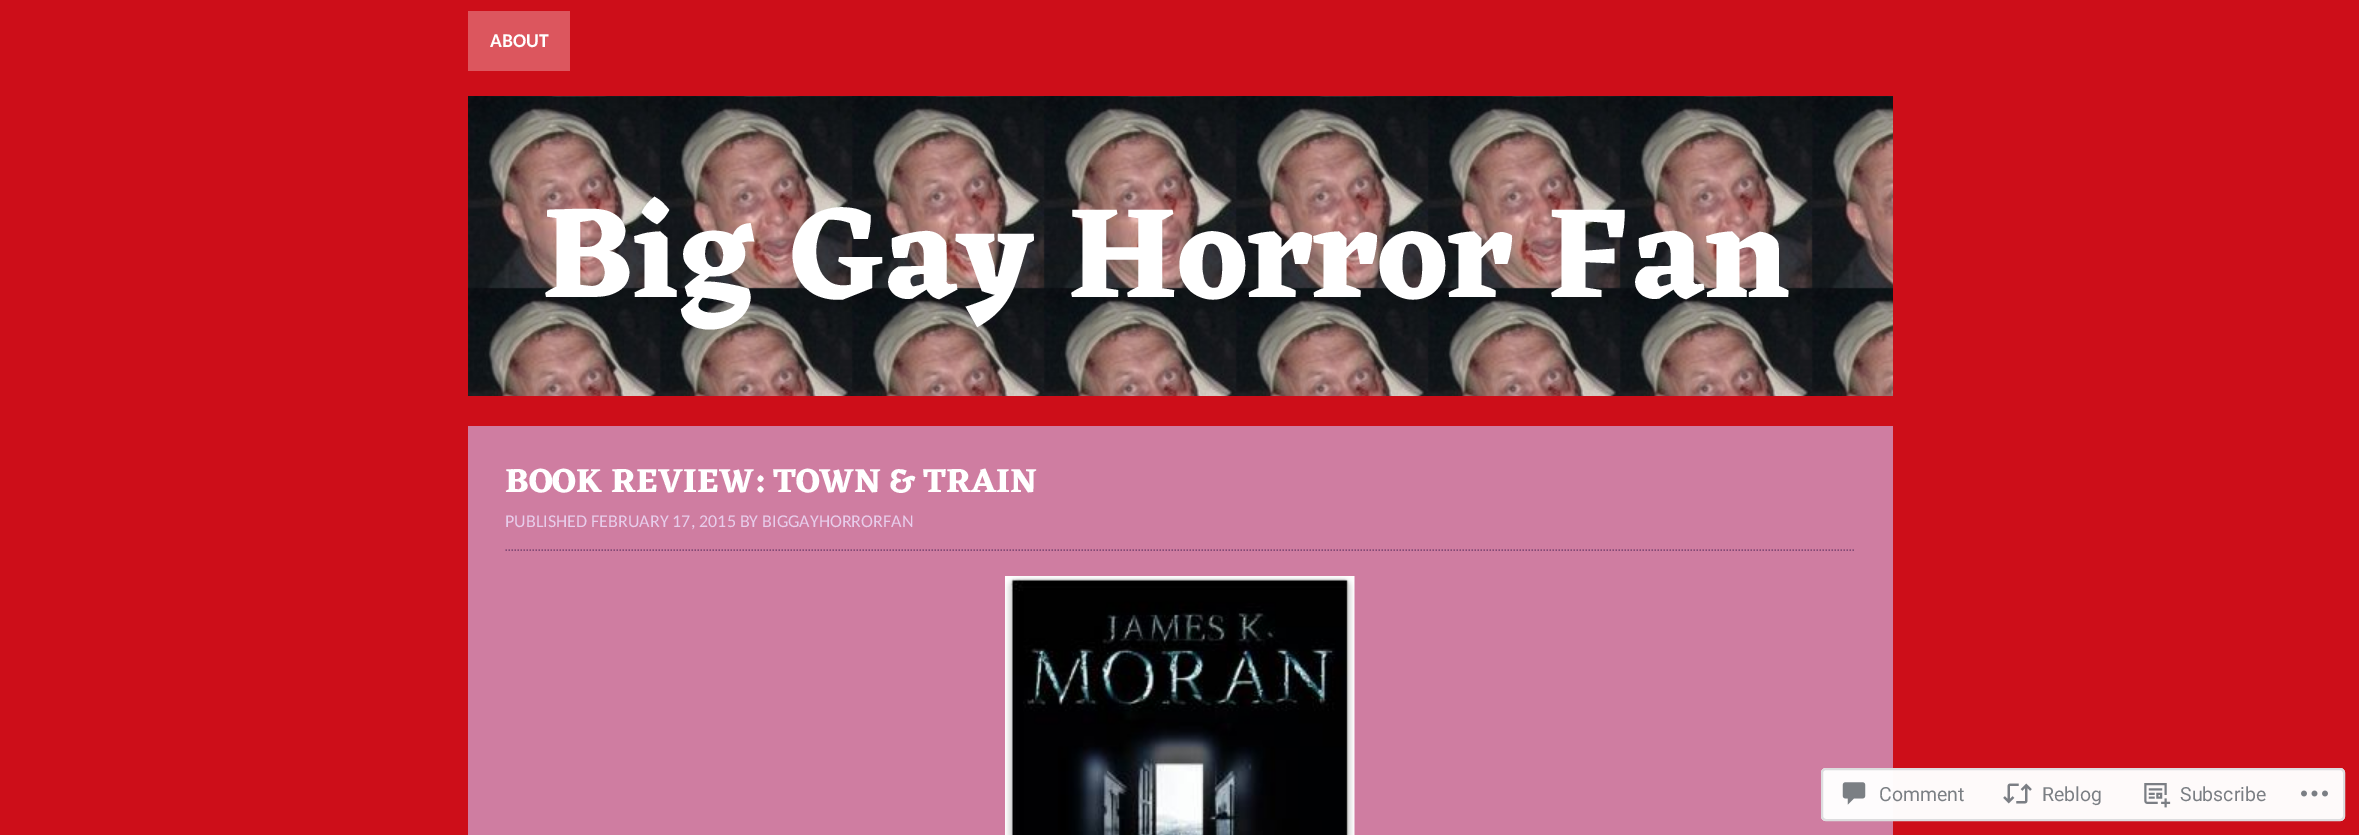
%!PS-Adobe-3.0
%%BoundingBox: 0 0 2359 835
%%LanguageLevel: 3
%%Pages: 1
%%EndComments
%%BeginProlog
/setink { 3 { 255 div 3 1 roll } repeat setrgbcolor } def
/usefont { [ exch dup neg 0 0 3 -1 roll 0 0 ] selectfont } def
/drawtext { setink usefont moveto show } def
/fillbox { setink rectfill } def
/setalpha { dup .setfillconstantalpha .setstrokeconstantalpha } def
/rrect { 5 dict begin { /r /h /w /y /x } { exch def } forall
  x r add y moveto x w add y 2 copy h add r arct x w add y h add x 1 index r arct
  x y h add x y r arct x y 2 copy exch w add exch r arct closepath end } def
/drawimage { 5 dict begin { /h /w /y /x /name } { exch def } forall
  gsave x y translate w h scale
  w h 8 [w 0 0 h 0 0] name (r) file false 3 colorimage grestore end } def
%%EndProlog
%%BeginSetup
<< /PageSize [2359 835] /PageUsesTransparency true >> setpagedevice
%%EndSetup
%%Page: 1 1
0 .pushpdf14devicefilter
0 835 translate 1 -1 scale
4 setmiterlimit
0 0 2359 835 205 14 25 fillbox
468 11 102 60 220 86 94 fillbox
(ABOUT) 490 47 /Carlito-Bold 19.5 255 255 255 drawtext
(assets/img1.rgb) 468 96 1425 300 drawimage
(Big Gay Horror Fan) 542 297 /Eczar-Bold 132 255 255 255 drawtext
468 426 1425 409 207 125 161 fillbox
132 74 118 setink
1.5 setlinewidth
[1.5 1.5] 0 setdash
505.5 550 moveto 1855.5 550 lineto stroke
(BOOK REVIEW: TOWN & TRAIN) 505 492 /Eczar-Bold 34.4 255 255 255 drawtext
(PUBLISHED FEBRUARY 17, 2015 BY BIGGAYHORRORFAN) 505 527 /Carlito-Regular 18 232 205 235 drawtext
(assets/img2.rgb) 1005 576 350 259 drawimage
0.98 setalpha
255 255 255 setink
1821 768 524 53 5 rrect fill
220 220 222 setink
2 setlinewidth
[] 0 setdash
1822 769 522 51 4 rrect stroke
1 setalpha
(assets/img3.rgb) 1842 782 24 23 drawimage
(Comment) 1879 801 /Roboto-Regular 19.5 123 127 132 drawtext
(assets/img4.rgb) 2003 783 29 21 drawimage
(Reblog) 2042 801 /Roboto-Regular 19.5 123 127 132 drawtext
(assets/img5.rgb) 2144 783 27 25 drawimage
(Subscribe) 2180 801 /Roboto-Regular 19.5 123 127 132 drawtext
(assets/img6.rgb) 2301 790 27 7 drawimage
.poppdf14devicefilter showpage
%%EOF
